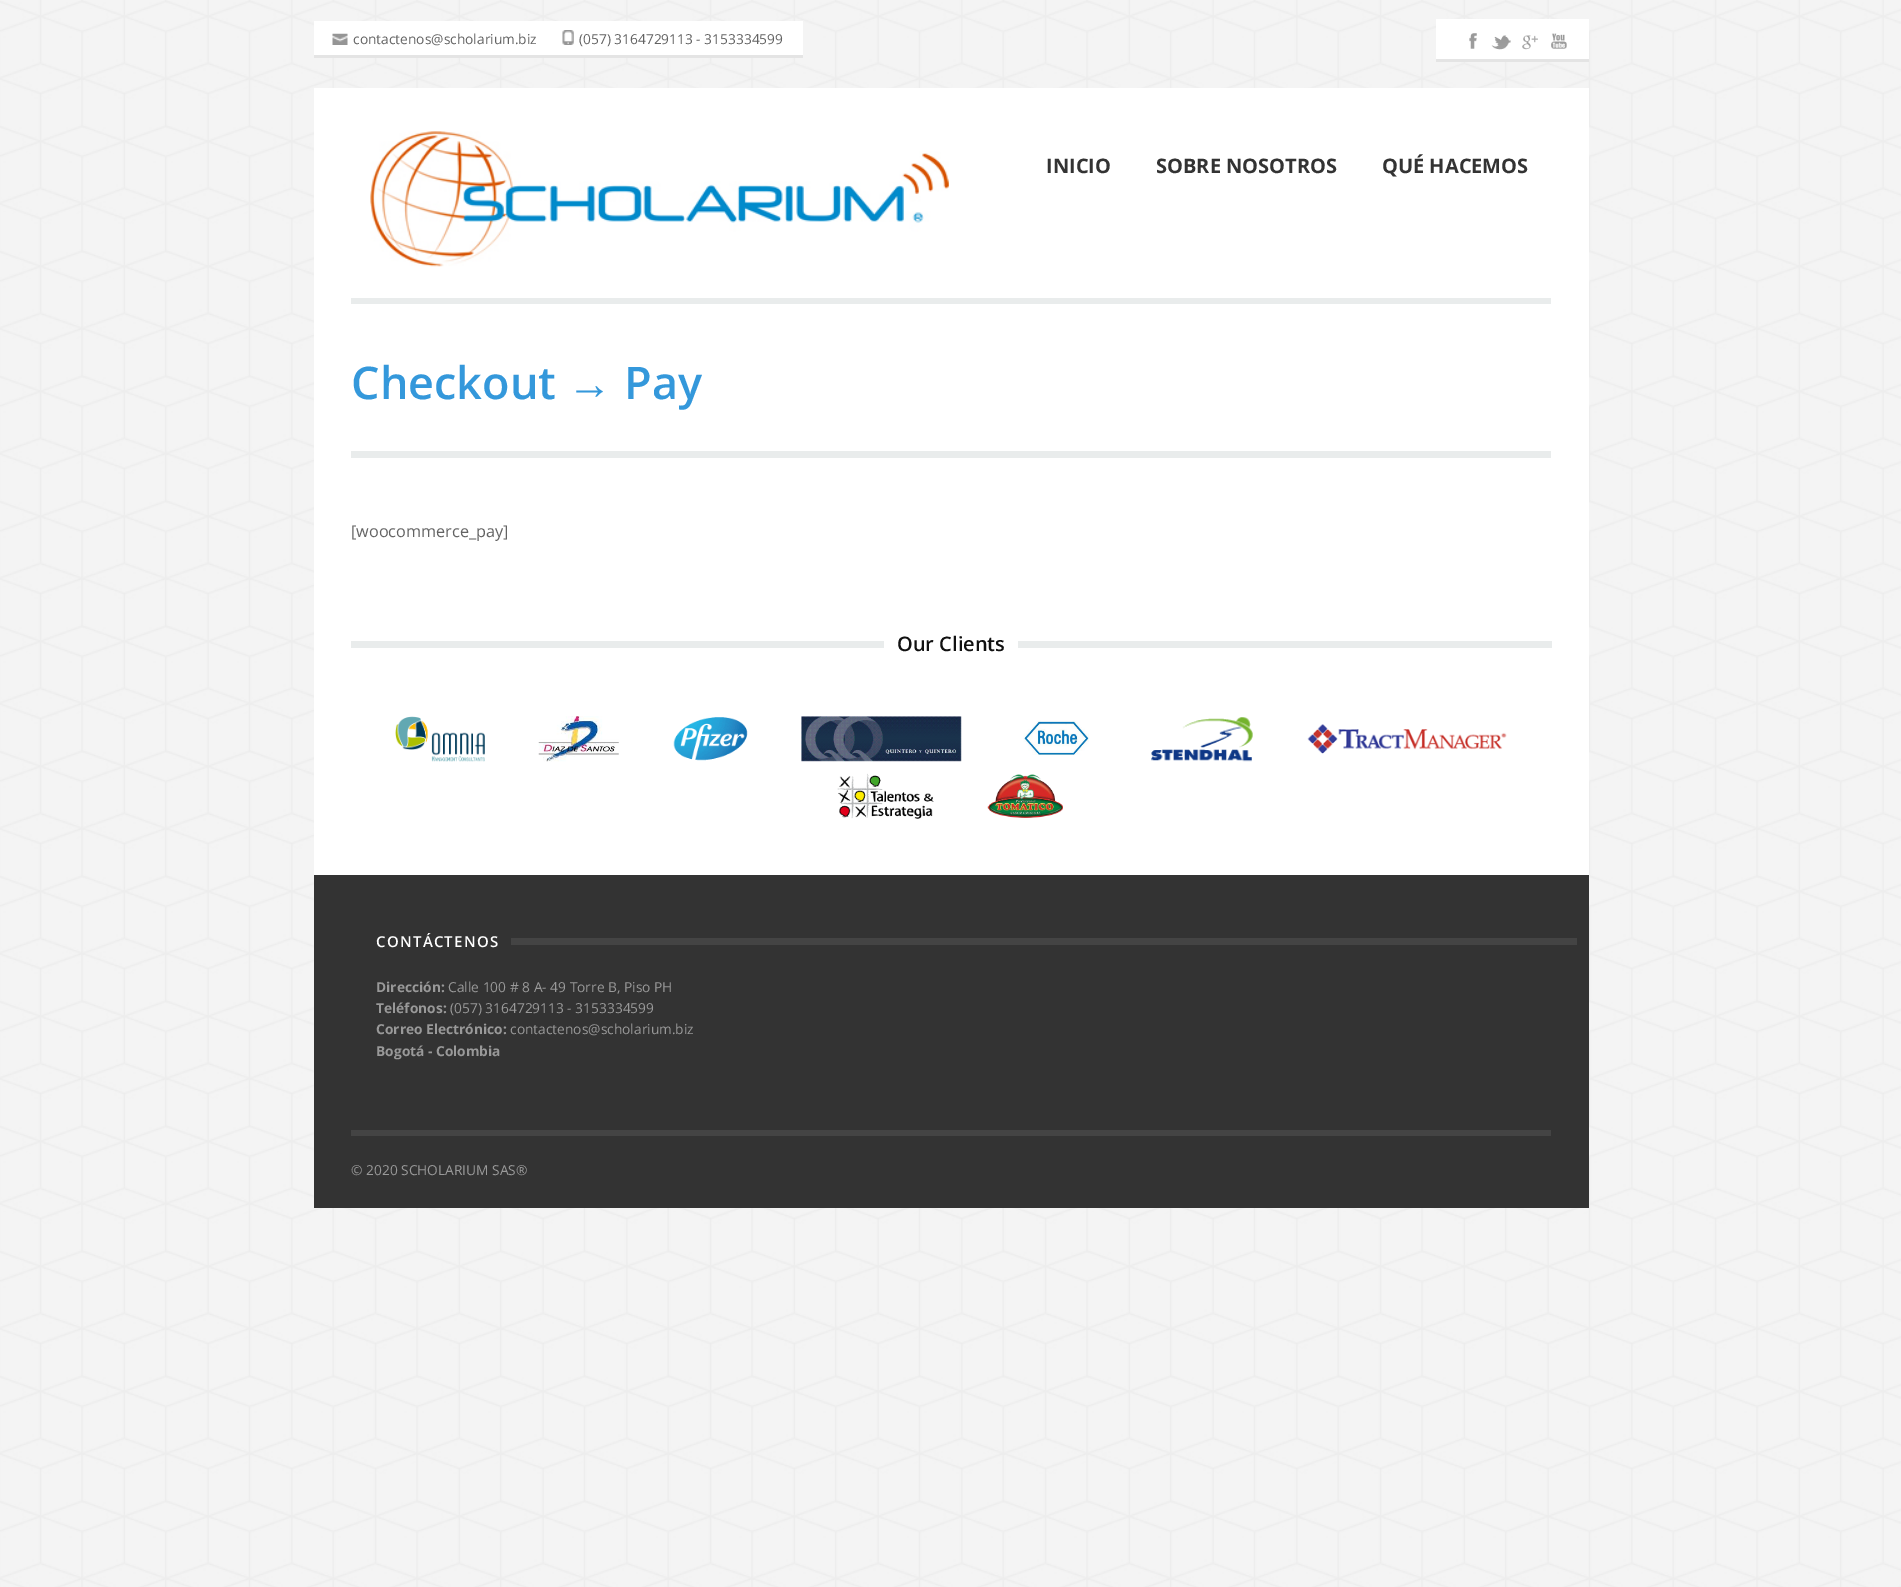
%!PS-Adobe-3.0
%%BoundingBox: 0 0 1901 1587
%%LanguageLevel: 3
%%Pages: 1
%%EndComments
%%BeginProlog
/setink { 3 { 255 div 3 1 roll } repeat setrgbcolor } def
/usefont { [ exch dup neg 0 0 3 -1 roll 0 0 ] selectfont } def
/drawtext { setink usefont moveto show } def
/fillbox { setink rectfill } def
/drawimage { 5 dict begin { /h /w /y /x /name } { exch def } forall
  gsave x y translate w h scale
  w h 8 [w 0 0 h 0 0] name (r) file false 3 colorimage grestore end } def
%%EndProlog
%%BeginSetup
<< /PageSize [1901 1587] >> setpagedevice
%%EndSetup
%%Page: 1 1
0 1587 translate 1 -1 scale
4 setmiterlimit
0 0 1901 1587 255 255 255 fillbox
(assets/img1.rgb) 0 0 1901 1587 drawimage
314 21 489 34 255 255 255 fillbox
314 55 489 3 228 228 228 fillbox
(assets/img2.rgb) 332 33 16 12 drawimage
(contactenos@scholarium.biz) 353 44 /OpenSans-Regular 13.75 99 99 99 drawtext
(assets/img3.rgb) 562 30 12 15 drawimage
(\(057\) 3164729113 - 3153334599) 579 44 /OpenSans-Regular 13.75 99 99 99 drawtext
1436 19 153 40 255 255 255 fillbox
1436 59 153 3 228 228 228 fillbox
(assets/img4.rgb) 1469 33 8 16 drawimage
(assets/img5.rgb) 1491 35 20 15 drawimage
(assets/img6.rgb) 1522 35 16 15 drawimage
(assets/img7.rgb) 1551 33 16 16 drawimage
314 88 1275 787 255 255 255 fillbox
(assets/img8.rgb) 370 131 579 136 drawimage
(INICIO) 1046 173 /OpenSans-Bold 20 51 51 51 drawtext
(SOBRE NOSOTROS) 1156 173 /OpenSans-Bold 20 51 51 51 drawtext
(QUÉ HACEMOS) 1382 173 /OpenSans-Bold 20 51 51 51 drawtext
351 298 1200 6 233 236 236 fillbox
(Checkout) 351 399 /OpenSans-SemiBold 45 52 152 219 drawtext
(→) 567 399 /LiberationSerif-Bold 45 52 152 219 drawtext
(Pay) 624 399 /OpenSans-SemiBold 45 52 152 219 drawtext
351 451 1200 7 233 236 236 fillbox
([woocommerce_pay]) 351 537 /OpenSans-Regular 16.25 99 99 99 drawtext
351 641 1201 7 233 236 236 fillbox
884 641 134 7 255 255 255 fillbox
(Our Clients) 897 651 /OpenSans-SemiBold 20 17 17 17 drawtext
(assets/img9.rgb) 395 716 90 46 drawimage
(assets/img10.rgb) 538 716 81 46 drawimage
(assets/img11.rgb) 673 717 75 44 drawimage
(assets/img12.rgb) 801 716 161 46 drawimage
(assets/img13.rgb) 1023 720 66 35 drawimage
(assets/img14.rgb) 1151 717 102 45 drawimage
(assets/img15.rgb) 1307 724 200 30 drawimage
(assets/img16.rgb) 837 773 97 46 drawimage
(assets/img17.rgb) 987 774 76 44 drawimage
314 875 1275 333 51 51 51 fillbox
511 938 1066 7 68 68 68 fillbox
/OpenSans-SemiBold 15 usefont
255 255 255 setink
376 947 moveto 1.25 0 (CONTÁCTENOS) ashow
(Dirección:) 376 992 /OpenSans-Bold 13.75 153 153 153 drawtext
(Calle 100 # 8 A- 49 Torre B, Piso PH) 448 992 /OpenSans-Regular 13.75 153 153 153 drawtext
(Teléfonos:) 376 1013 /OpenSans-Bold 13.75 153 153 153 drawtext
(\(057\) 3164729113 - 3153334599) 450 1013 /OpenSans-Regular 13.75 153 153 153 drawtext
(Correo Electrónico:) 376 1034 /OpenSans-Bold 13.75 153 153 153 drawtext
(contactenos@scholarium.biz) 510 1034 /OpenSans-Regular 13.75 153 153 153 drawtext
(Bogotá - Colombia) 376 1056 /OpenSans-Bold 13.75 153 153 153 drawtext
351 1130 1200 6 68 68 68 fillbox
(© 2020 SCHOLARIUM SAS®) 351 1175 /OpenSans-Regular 13.75 153 153 153 drawtext
showpage
%%EOF
